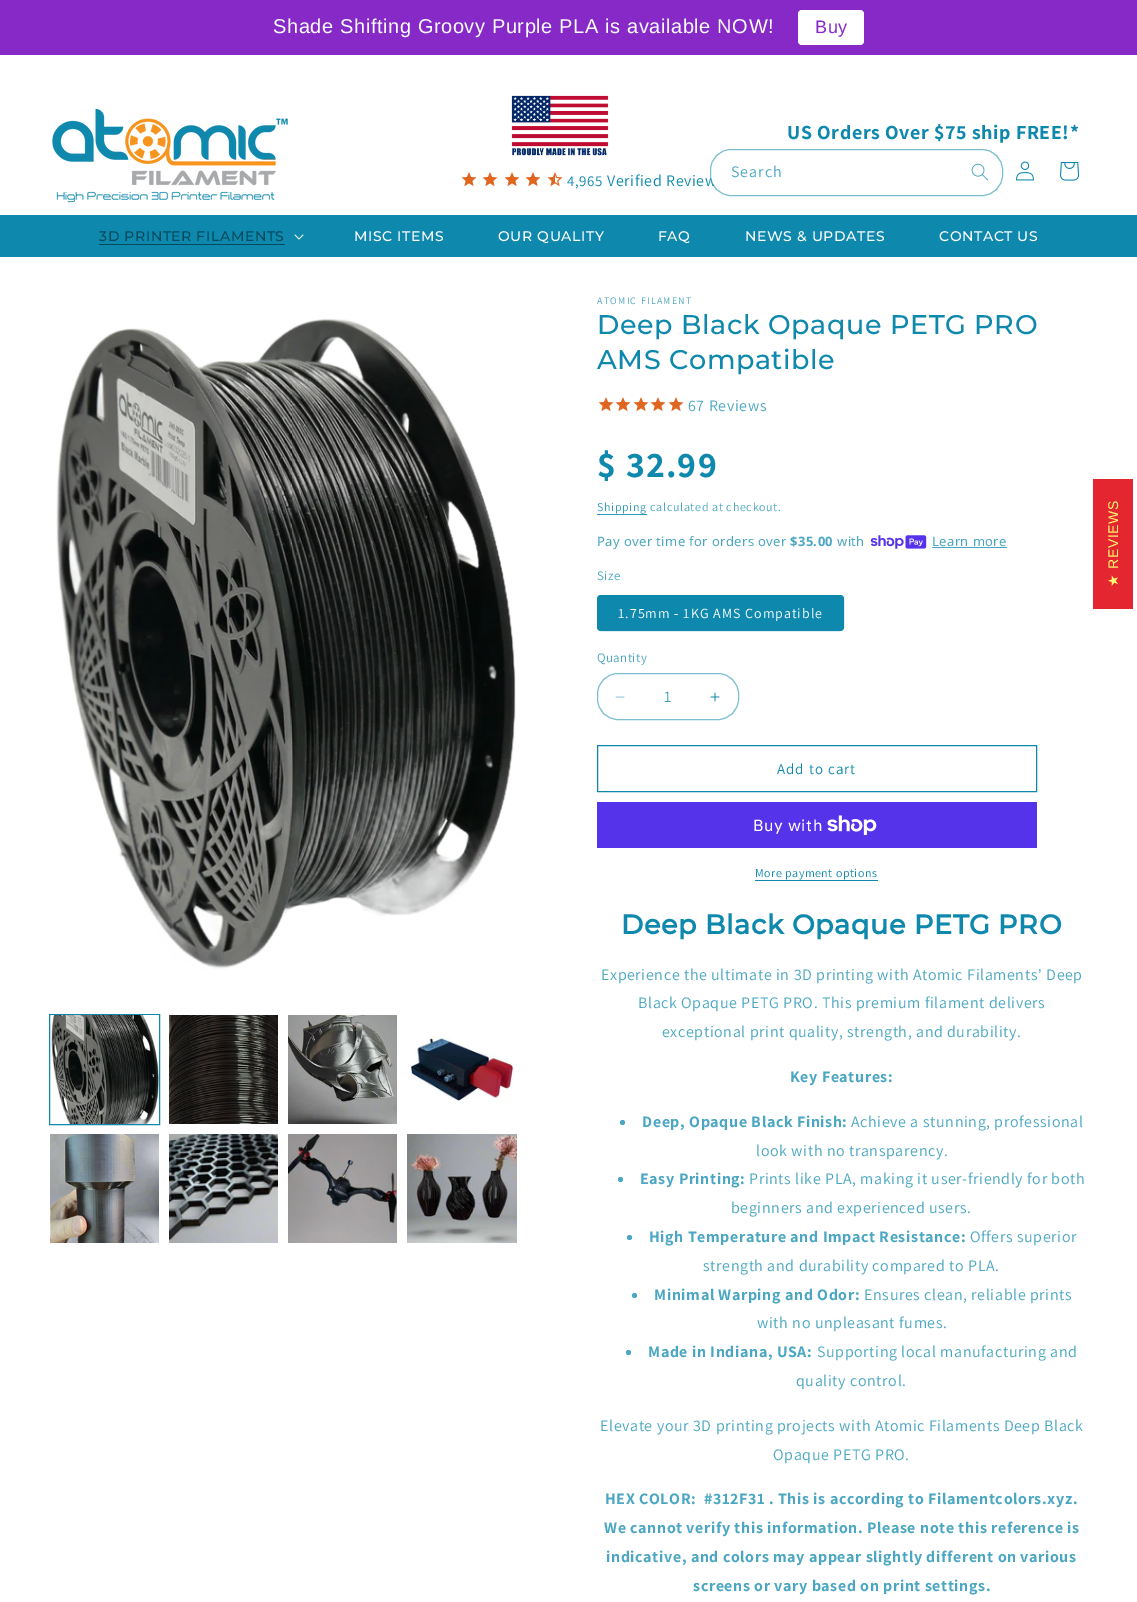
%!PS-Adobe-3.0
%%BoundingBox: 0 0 1137 1602
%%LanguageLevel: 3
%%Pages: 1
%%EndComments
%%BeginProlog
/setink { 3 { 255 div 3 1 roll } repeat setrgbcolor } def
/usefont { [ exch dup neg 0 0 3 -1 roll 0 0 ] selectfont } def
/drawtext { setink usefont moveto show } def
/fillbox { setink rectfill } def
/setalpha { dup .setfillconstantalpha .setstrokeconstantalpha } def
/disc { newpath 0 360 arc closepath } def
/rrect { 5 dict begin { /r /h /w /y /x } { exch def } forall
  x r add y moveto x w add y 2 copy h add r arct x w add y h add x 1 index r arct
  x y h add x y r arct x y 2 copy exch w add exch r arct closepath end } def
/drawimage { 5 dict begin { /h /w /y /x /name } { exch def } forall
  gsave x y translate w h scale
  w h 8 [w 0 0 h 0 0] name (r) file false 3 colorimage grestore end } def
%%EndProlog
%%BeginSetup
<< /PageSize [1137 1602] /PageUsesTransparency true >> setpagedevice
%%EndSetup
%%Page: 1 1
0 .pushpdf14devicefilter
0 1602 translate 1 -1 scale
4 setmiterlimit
0 0 1137 1602 255 255 255 fillbox
0 0 1137 55 134 41 198 fillbox
/LiberationSans-Regular 20 usefont
255 255 255 setink
273 33 moveto 0.6 0 (Shade Shifting Groovy Purple PLA is available NOW!) ashow
798 10 66 35 4 rrect fill
/LiberationSans-Regular 18 usefont
134 41 198 setink
815 33 moveto 0.6 0 (Buy) ashow
(assets/img1.rgb) 52 108 236 95 drawimage
/Assistant-Bold 20 usefont
14 136 173 setink
787 139 moveto 0.6 0 (US Orders Over $75 ship FREE!*) ashow
/Assistant-Regular 16 usefont
607 186 moveto 0.6 0 (Verified Review) ashow
255 255 255 setink
711 150 291 45 20 rrect fill
0.55 setalpha
14 136 173 setink
710.5 149.5 292 46 20.5 rrect stroke
1 setalpha
74 166 194 setink
731 177 moveto 1 0 (Search) ashow
(assets/img2.rgb) 971 163 17 18 drawimage
(assets/img3.rgb) 1016 161 18 20 drawimage
(assets/img4.rgb) 1060 162 20 19 drawimage
(assets/img5.rgb) 511 95 98 61 drawimage
(assets/img6.rgb) 461 172 16 15 drawimage
(assets/img6.rgb) 482 172 16 15 drawimage
(assets/img6.rgb) 504 172 16 15 drawimage
(assets/img6.rgb) 525 172 16 15 drawimage
(assets/img7.rgb) 547 172 16 15 drawimage
/Assistant-Regular 15 usefont
14 136 173 setink
567 186 moveto 0.6 0 (4,965) ashow
0 215 1137 42 14 136 173 fillbox
/Montserrat-Medium 14 usefont
7 74 94 setink
99 241 moveto 0.6 0 (3D PRINTER FILAMENTS) ashow
99 244 186 1 7 74 94 fillbox
(assets/img8.rgb) 294 234 10 6 drawimage
255 255 255 setink
354 241 moveto 0.6 0 (MISC ITEMS) ashow
498 241 moveto 0.6 0 (OUR QUALITY) ashow
658 241 moveto 0.6 0 (FAQ) ashow
745 241 moveto 0.6 0 (NEWS & UPDATES) ashow
939 241 moveto 0.6 0 (CONTACT US) ashow
(assets/img9.rgb) 56 318 460 652 drawimage
14 136 173 setink
49.5 1014.5 110 110 rectstroke
(assets/img10.rgb) 51 1015 108 109 drawimage
(assets/img11.rgb) 169 1015 109 109 drawimage
(assets/img12.rgb) 288 1015 109 109 drawimage
(assets/img13.rgb) 410 1037 104 66 drawimage
(assets/img14.rgb) 50 1134 109 109 drawimage
(assets/img15.rgb) 169 1134 109 109 drawimage
(assets/img16.rgb) 288 1134 109 109 drawimage
(assets/img17.rgb) 407 1134 110 109 drawimage
/Assistant-Regular 10 usefont
74 166 194 setink
597 304 moveto 1.25 0 (ATOMIC FILAMENT) ashow
/Montserrat-Medium 27 usefont
14 136 173 setink
597 334 moveto 0.6 0 (Deep Black Opaque PETG PRO) ashow
597 369 moveto 0.6 0 (AMS Compatible) ashow
(assets/img6.rgb) 598 397 16 15 drawimage
(assets/img6.rgb) 615 397 16 15 drawimage
(assets/img6.rgb) 633 397 16 15 drawimage
(assets/img6.rgb) 650 397 16 15 drawimage
(assets/img6.rgb) 668 397 16 15 drawimage
/Assistant-Regular 16 usefont
74 166 194 setink
688 411 moveto 0.6 0 (67 Reviews) ashow
/Assistant-Bold 36 usefont
14 136 173 setink
597 477 moveto 1.25 0 ($ 32.99) ashow
/Assistant-Regular 12 usefont
50 154 185 setink
597 511 moveto 0.7 0 (Shipping) ashow
597 514 50 1 50 154 185 fillbox
74 166 194 setink
650 511 moveto 0.7 0 (calculated at checkout.) ashow
/NotoSans-Regular 13 usefont
597 546 moveto 0.4 0 (Pay over time for orders over) ashow
/NotoSans-Bold 13 usefont
790 546 moveto 0.4 0 ($35.00) ashow
/NotoSans-Regular 13 usefont
837 546 moveto 0.4 0 (with) ashow
(assets/img18.rgb) 870 535 57 14 drawimage
932 546 moveto 0.4 0 (Learn more) ashow
932 547 75 1 74 166 194 fillbox
/Assistant-Regular 13 usefont
597 580 moveto 0.4 0 (Size) ashow
14 136 173 setink
597 595 247 36 4 rrect fill
0.55 setalpha
597.5 595.5 246 35 3.5 rrect stroke
/Assistant-Regular 14 usefont
1 setalpha
255 255 255 setink
618 618 moveto 1 0 (1.75mm - 1KG AMS Compatible) ashow
/Assistant-Regular 13 usefont
74 166 194 setink
597 662 moveto 0.4 0 (Quantity) ashow
(assets/img19.rgb) 615 696 10 2 drawimage
(assets/img20.rgb) 710 692 10 10 drawimage
122 190 210 setink
597.5 673.5 141 46 20.5 rrect stroke
(1) 664 702 /Assistant-Regular 16 50 154 185 drawtext
14 136 173 setink
597.5 745.5 439 46 rectstroke
/Assistant-Regular 15 usefont
777 774 moveto 1 0 (Add to cart) ashow
597 802 440 46 84 51 235 fillbox
/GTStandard-Regular 16 usefont
255 255 255 setink
753 831 moveto 0.6 0 (Buy with) ashow
(assets/img21.rgb) 827 815 50 20 drawimage
/Assistant-Regular 12 usefont
14 136 173 setink
755 877 moveto 0.5 0 (More payment options) ashow
755 880 123 1 14 136 173 fillbox
/Montserrat-Bold 27 usefont
621 934 moveto 0.6 0 (Deep Black Opaque PETG PRO) ashow
/Assistant-Regular 16 usefont
74 166 194 setink
601 980 moveto 0.6 0 (Experience the ultimate in 3D printing with Atomic Filaments' Deep) ashow
638 1008 moveto 0.6 0 (Black Opaque PETG PRO. This premium filament delivers) ashow
662 1037 moveto 0.6 0 (exceptional print quality, strength, and durability.) ashow
/Assistant-Bold 16 usefont
790 1082 moveto 0.6 0 (Key Features:) ashow
622.5 1122.5 2.5 disc fill
642 1127 moveto 0.6 0 (Deep, Opaque Black Finish:) ashow
/Assistant-Regular 16 usefont
851 1127 moveto 0.6 0 (Achieve a stunning, professional) ashow
756 1156 moveto 0.6 0 (look with no transparency.) ashow
620.5 1179.5 2.5 disc fill
/Assistant-Bold 16 usefont
640 1184 moveto 0.6 0 (Easy Printing:) ashow
/Assistant-Regular 16 usefont
749 1184 moveto 0.6 0 (Prints like PLA, making it user-friendly for both) ashow
731 1213 moveto 0.6 0 (beginners and experienced users.) ashow
629.5 1237.5 2.5 disc fill
/Assistant-Bold 16 usefont
649 1242 moveto 0.6 0 (High Temperature and Impact Resistance:) ashow
/Assistant-Regular 16 usefont
970 1242 moveto 0.6 0 (Offers superior) ashow
703 1271 moveto 0.6 0 (strength and durability compared to PLA.) ashow
634.5 1295.5 2.5 disc fill
/Assistant-Bold 16 usefont
654 1300 moveto 0.6 0 (Minimal Warping and Odor:) ashow
/Assistant-Regular 16 usefont
864 1300 moveto 0.6 0 (Ensures clean, reliable prints) ashow
757 1328 moveto 0.6 0 (with no unpleasant fumes.) ashow
628.5 1352.5 2.5 disc fill
/Assistant-Bold 16 usefont
648 1357 moveto 0.6 0 (Made in Indiana, USA:) ashow
/Assistant-Regular 16 usefont
817 1357 moveto 0.6 0 (Supporting local manufacturing and) ashow
796 1386 moveto 0.6 0 (quality control.) ashow
600 1431 moveto 0.6 0 (Elevate your 3D printing projects with Atomic Filaments Deep Black) ashow
773 1460 moveto 0.6 0 (Opaque PETG PRO.) ashow
/Assistant-Bold 16 usefont
605 1504 moveto 0.6 0 (HEX COLOR:  #312F31 . This is according to Filamentcolors.xyz.) ashow
604 1533 moveto 0.6 0 (We cannot verify this information. Please note this reference is) ashow
606 1562 moveto 0.6 0 (indicative, and colors may appear slightly different on various) ashow
693 1591 moveto 0.6 0 (screens or vary based on print settings.) ashow
1093 479 40 130 227 38 48 fillbox
/LiberationSans-Regular 14 usefont
255 248 110 setink
gsave 1118 569 translate -90 rotate 0 0 moveto 0.6 0 (REVIEWS) ashow grestore
/DejaVuSans-Regular 14 usefont
gsave 1118 587 translate -90 rotate 0 0 moveto 0.6 0 (★) ashow grestore
.poppdf14devicefilter showpage
%%EOF
